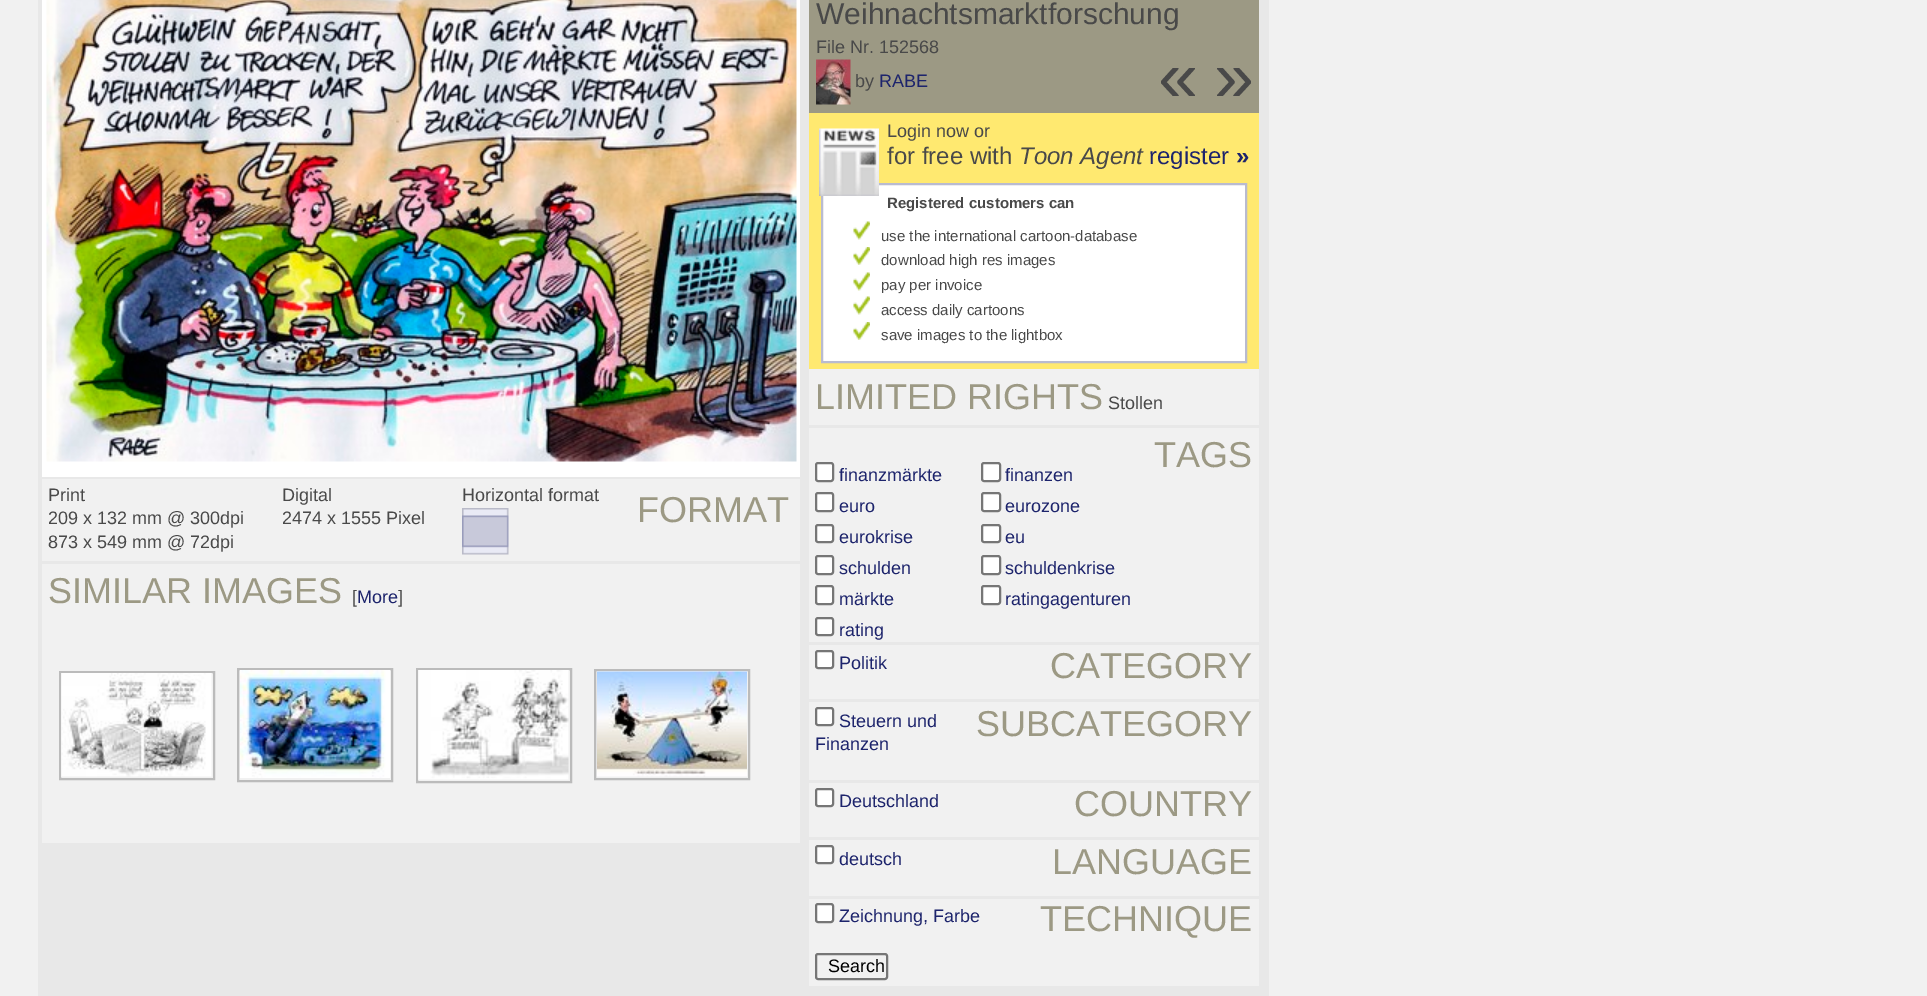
%!PS-Adobe-3.0
%%BoundingBox: 0 0 1927 996
%%LanguageLevel: 3
%%Pages: 1
%%EndComments
%%BeginProlog
/setink { 3 { 255 div 3 1 roll } repeat setrgbcolor } def
/usefont { [ exch dup neg 0 0 3 -1 roll 0 0 ] selectfont } def
/drawtext { setink usefont moveto show } def
/fillbox { setink rectfill } def
/rrect { 5 dict begin { /r /h /w /y /x } { exch def } forall
  x r add y moveto x w add y 2 copy h add r arct x w add y h add x 1 index r arct
  x y h add x y r arct x y 2 copy exch w add exch r arct closepath end } def
/drawimage { 5 dict begin { /h /w /y /x /name } { exch def } forall
  gsave x y translate w h scale
  w h 8 [w 0 0 h 0 0] name (r) file false 3 colorimage grestore end } def
%%EndProlog
%%BeginSetup
<< /PageSize [1927 996] >> setpagedevice
%%EndSetup
%%Page: 1 1
0 996 translate 1 -1 scale
4 setmiterlimit
0 0 1927 996 241 241 241 fillbox
38 0 1231 996 232 232 232 fillbox
42 0 758 477 255 255 255 fillbox
(assets/img1.rgb) 46 0 751 462 drawimage
42 479 758 82 241 241 241 fillbox
(Print) 48 501 /LiberationSans-Regular 18 73 73 73 drawtext
(209 x 132 mm @ 300dpi) 48 524 /LiberationSans-Regular 18 73 73 73 drawtext
(873 x 549 mm @ 72dpi) 48 548 /LiberationSans-Regular 18 73 73 73 drawtext
(Digital) 282 501 /LiberationSans-Regular 18 73 73 73 drawtext
(2474 x 1555 Pixel) 282 524 /LiberationSans-Regular 18 73 73 73 drawtext
(Horizontal format) 462 501 /LiberationSans-Regular 18 73 73 73 drawtext
(assets/img2.rgb) 462 508 47 47 drawimage
(FORMAT) 637 522 /LiberationSans-Regular 36 156 153 132 drawtext
42 564 758 279 241 241 241 fillbox
(SIMILAR IMAGES) 48 603 /LiberationSans-Regular 36 156 153 132 drawtext
([) 352 603 /LiberationSans-Regular 18 73 73 73 drawtext
(More) 357 603 /LiberationSans-Regular 18 29 36 108 drawtext
(]) 398 603 /LiberationSans-Regular 18 73 73 73 drawtext
187 187 187 setink
2 setlinewidth
60 672 154 107 rectstroke
(assets/img3.rgb) 61 673 151 104 drawimage
238 669 154 112 rectstroke
(assets/img4.rgb) 240 670 150 108 drawimage
417 669 154 113 rectstroke
(assets/img5.rgb) 418 670 151 110 drawimage
595 670 154 109 rectstroke
(assets/img6.rgb) 597 671 150 106 drawimage
809 0 450 113 156 153 132 fillbox
(Weihnachtsmarktforschung) 816 24 /LiberationSans-Regular 30 73 73 73 drawtext
(File Nr. 152568) 816 53 /LiberationSans-Regular 18 73 73 73 drawtext
(assets/img7.rgb) 816 59 35 46 drawimage
(by) 855 87 /LiberationSans-Regular 18 73 73 73 drawtext
(RABE) 879 87 /LiberationSans-Regular 18 29 36 108 drawtext
(«) 1158 101 /LiberationSans-Regular 72 73 73 73 drawtext
(») 1214 101 /LiberationSans-Regular 72 73 73 73 drawtext
809 113 450 256 255 233 112 fillbox
255 255 255 setink
822 184 moveto 1246 184 lineto 1246 362 lineto 822 362 lineto closepath gsave fill grestore
185 187 208 setink
stroke
(assets/img8.rgb) 819 128 60 68 drawimage
(Login now or) 887 137 /LiberationSans-Regular 18 73 73 73 drawtext
(for free with) 887 164 /LiberationSans-Regular 24 73 73 73 drawtext
(Toon Agent) 1019 164 /LiberationSans-Italic 24 73 73 73 drawtext
(register) 1149 164 /LiberationSans-Regular 24 29 36 108 drawtext
(») 1236 164 /LiberationSans-Bold 24 29 36 108 drawtext
(Registered customers can) 887 208 /LiberationSans-Bold 15 73 73 73 drawtext
(assets/img9.rgb) 853 221 17 19 drawimage
(use the international cartoon-database) 881 241 /LiberationSans-Regular 15 73 73 73 drawtext
(assets/img10.rgb) 853 247 17 18 drawimage
(download high res images) 881 265 /LiberationSans-Regular 15 73 73 73 drawtext
(assets/img9.rgb) 853 272 17 19 drawimage
(pay per invoice) 881 290 /LiberationSans-Regular 15 73 73 73 drawtext
(assets/img9.rgb) 853 296 17 19 drawimage
(access daily cartoons) 881 315 /LiberationSans-Regular 15 73 73 73 drawtext
(assets/img10.rgb) 853 322 17 18 drawimage
(save images to the lightbox) 881 340 /LiberationSans-Regular 15 73 73 73 drawtext
809 369 450 56 241 241 241 fillbox
(LIMITED RIGHTS) 815 409 /LiberationSans-Regular 36 156 153 132 drawtext
(Stollen) 1108 409 /LiberationSans-Regular 18 73 73 73 drawtext
809 428 450 558 241 241 241 fillbox
(TAGS) 1154 467 /LiberationSans-Regular 36 156 153 132 drawtext
255 255 255 setink
816 463 17 18 2 rrect gsave fill grestore
118 118 118 setink
stroke
(finanzmärkte) 839 481 /LiberationSans-Regular 18 29 36 108 drawtext
255 255 255 setink
982 463 18 18 2 rrect gsave fill grestore
118 118 118 setink
stroke
(finanzen) 1005 481 /LiberationSans-Regular 18 29 36 108 drawtext
255 255 255 setink
816 493 17 18 2 rrect gsave fill grestore
118 118 118 setink
stroke
(euro) 839 512 /LiberationSans-Regular 18 29 36 108 drawtext
255 255 255 setink
982 493 18 18 2 rrect gsave fill grestore
118 118 118 setink
stroke
(eurozone) 1005 512 /LiberationSans-Regular 18 29 36 108 drawtext
255 255 255 setink
816 525 17 17 2 rrect gsave fill grestore
118 118 118 setink
stroke
(eurokrise) 839 543 /LiberationSans-Regular 18 29 36 108 drawtext
255 255 255 setink
982 525 18 17 2 rrect gsave fill grestore
118 118 118 setink
stroke
(eu) 1005 543 /LiberationSans-Regular 18 29 36 108 drawtext
255 255 255 setink
816 556 17 18 2 rrect gsave fill grestore
118 118 118 setink
stroke
(schulden) 839 574 /LiberationSans-Regular 18 29 36 108 drawtext
255 255 255 setink
982 556 18 18 2 rrect gsave fill grestore
118 118 118 setink
stroke
(schuldenkrise) 1005 574 /LiberationSans-Regular 18 29 36 108 drawtext
255 255 255 setink
816 586 17 18 2 rrect gsave fill grestore
118 118 118 setink
stroke
(märkte) 839 605 /LiberationSans-Regular 18 29 36 108 drawtext
255 255 255 setink
982 586 18 18 2 rrect gsave fill grestore
118 118 118 setink
stroke
(ratingagenturen) 1005 605 /LiberationSans-Regular 18 29 36 108 drawtext
255 255 255 setink
816 618 17 17 2 rrect gsave fill grestore
118 118 118 setink
stroke
(rating) 839 636 /LiberationSans-Regular 18 29 36 108 drawtext
809 642 450 3 232 232 232 fillbox
255 255 255 setink
816 651 17 17 2 rrect gsave fill grestore
118 118 118 setink
stroke
(Politik) 839 669 /LiberationSans-Regular 18 29 36 108 drawtext
(CATEGORY) 1050 678 /LiberationSans-Regular 36 156 153 132 drawtext
809 699 450 3 232 232 232 fillbox
255 255 255 setink
816 708 17 17 2 rrect gsave fill grestore
118 118 118 setink
stroke
(Steuern und) 839 727 /LiberationSans-Regular 18 29 36 108 drawtext
(SUBCATEGORY) 976 736 /LiberationSans-Regular 36 156 153 132 drawtext
(Finanzen) 815 750 /LiberationSans-Regular 18 29 36 108 drawtext
809 780 450 3 232 232 232 fillbox
255 255 255 setink
816 789 17 17 2 rrect gsave fill grestore
118 118 118 setink
stroke
(Deutschland) 839 807 /LiberationSans-Regular 18 29 36 108 drawtext
(COUNTRY) 1074 816 /LiberationSans-Regular 36 156 153 132 drawtext
809 837 450 3 232 232 232 fillbox
255 255 255 setink
816 846 17 17 2 rrect gsave fill grestore
118 118 118 setink
stroke
(deutsch) 839 865 /LiberationSans-Regular 18 29 36 108 drawtext
(LANGUAGE) 1052 874 /LiberationSans-Regular 36 156 153 132 drawtext
809 896 450 3 232 232 232 fillbox
255 255 255 setink
816 904 17 18 2 rrect gsave fill grestore
118 118 118 setink
stroke
(Zeichnung, Farbe) 839 922 /LiberationSans-Regular 18 29 36 108 drawtext
(TECHNIQUE) 1040 931 /LiberationSans-Regular 36 156 153 132 drawtext
118 118 118 setink
816 954 71 25 2 rrect stroke
(Search) 828 972 /LiberationSans-Regular 18 0 0 0 drawtext
showpage
%%EOF
